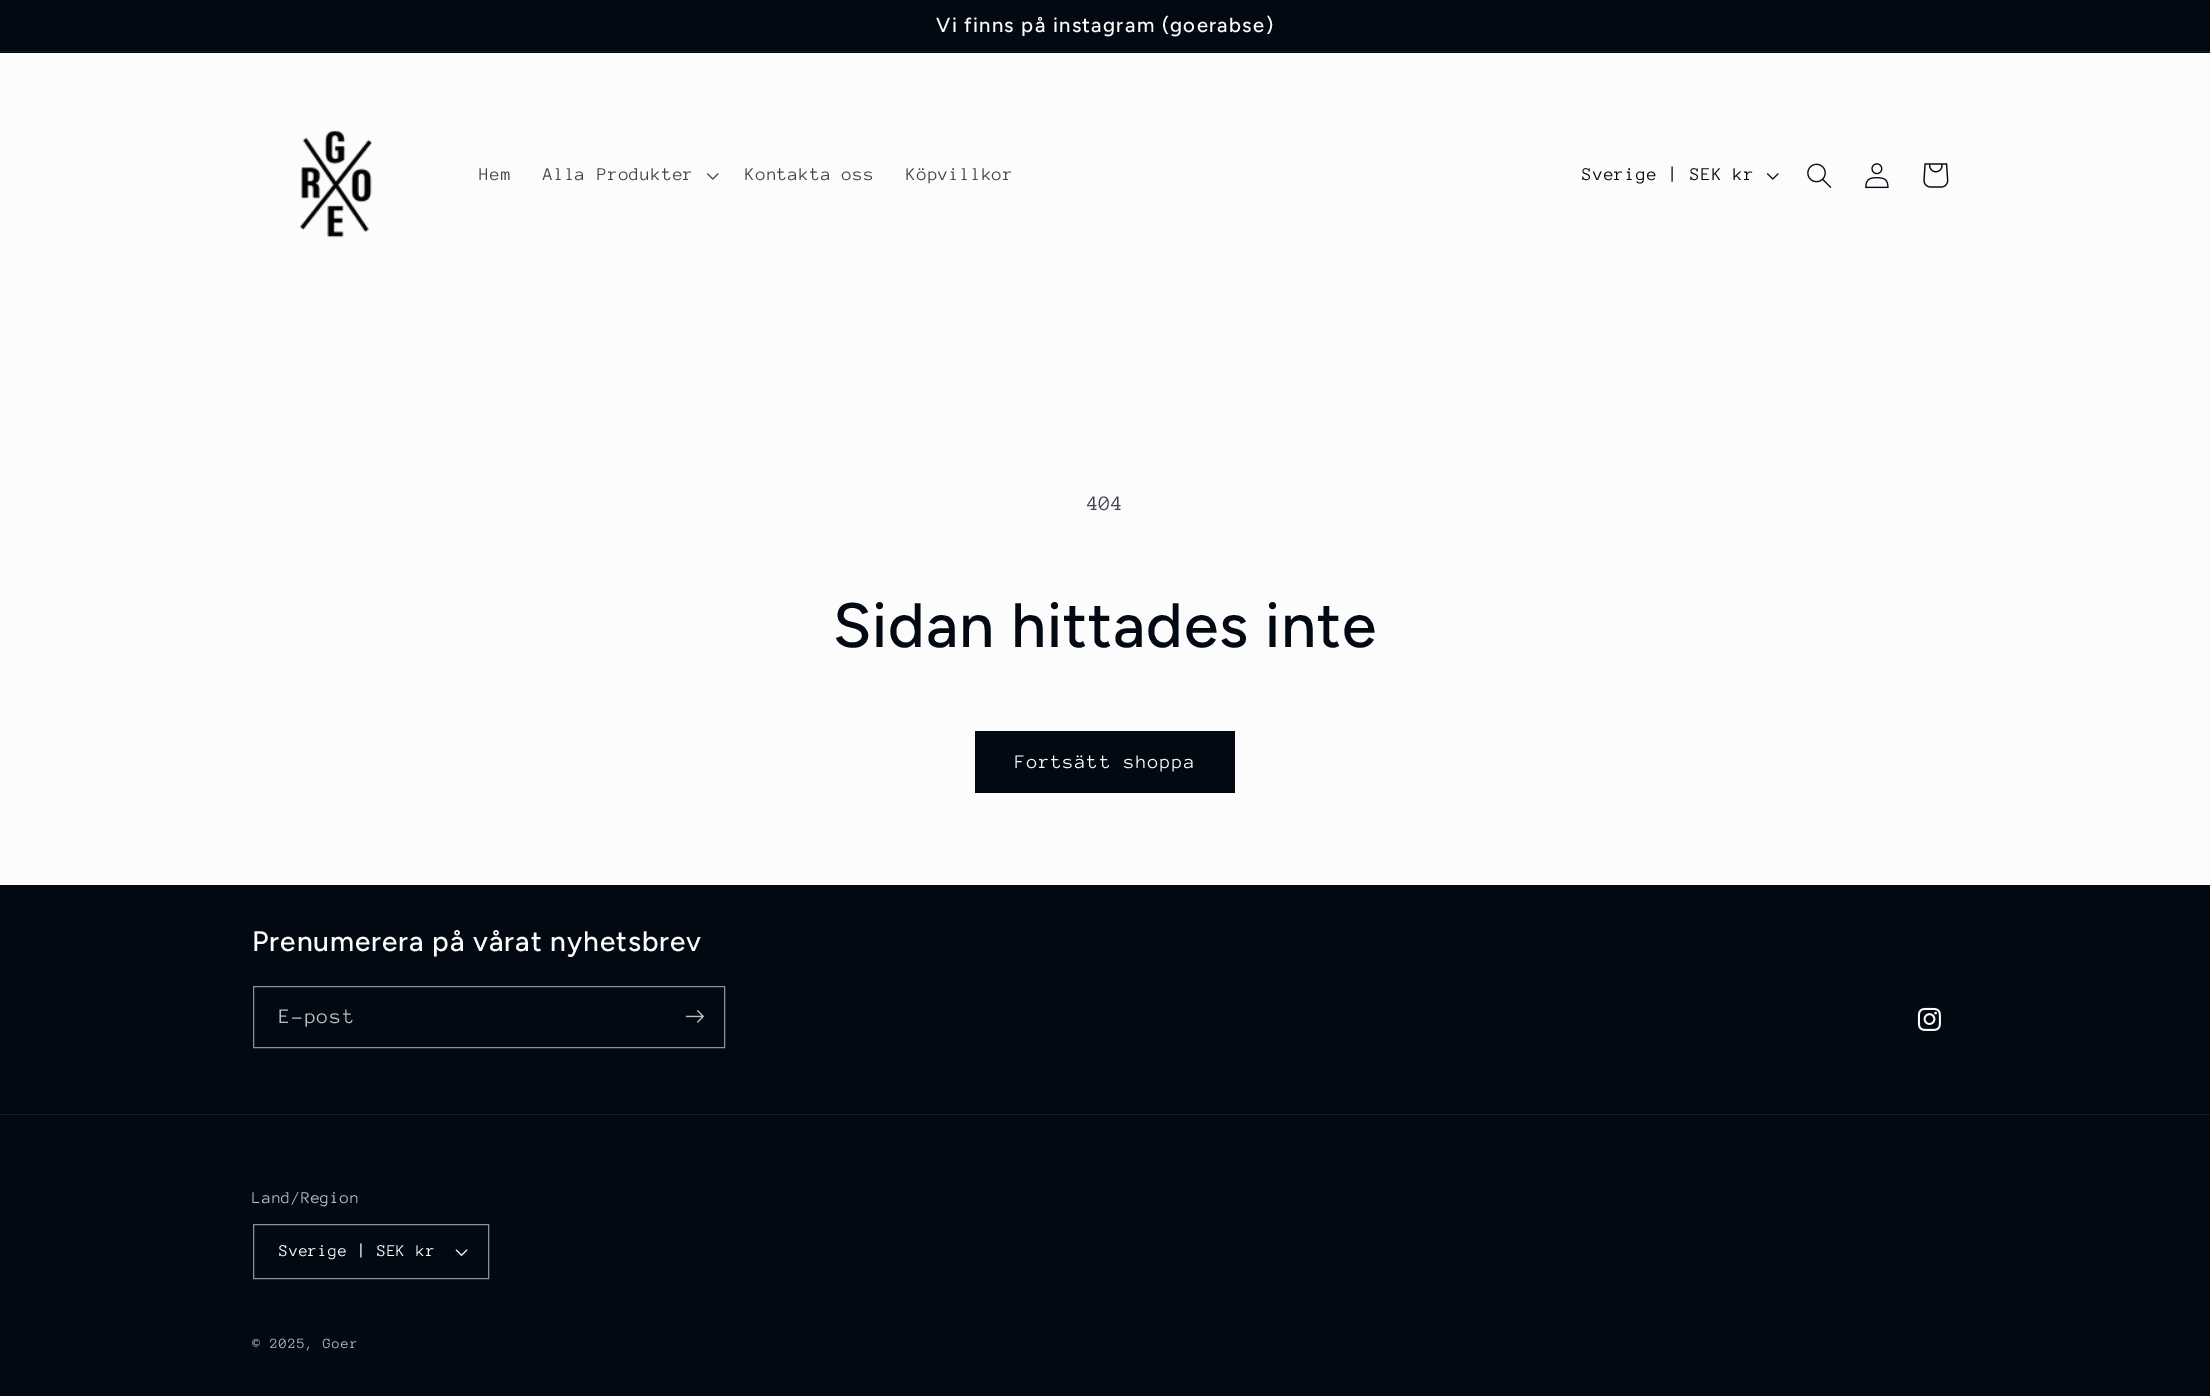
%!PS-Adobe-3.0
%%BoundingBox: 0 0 2210 1396
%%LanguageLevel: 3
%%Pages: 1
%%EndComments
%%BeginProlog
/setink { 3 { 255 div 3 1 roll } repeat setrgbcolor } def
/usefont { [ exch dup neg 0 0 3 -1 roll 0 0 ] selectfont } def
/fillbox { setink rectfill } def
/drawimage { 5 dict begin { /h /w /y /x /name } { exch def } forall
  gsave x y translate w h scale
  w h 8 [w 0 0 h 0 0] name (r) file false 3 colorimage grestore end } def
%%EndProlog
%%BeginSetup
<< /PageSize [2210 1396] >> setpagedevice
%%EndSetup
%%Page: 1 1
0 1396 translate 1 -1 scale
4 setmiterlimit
0 0 2210 1396 252 252 252 fillbox
0 0 2210 53 2 9 18 fillbox
0 51 2210 1 22 28 37 fillbox
/Figtree-Medium 20.3 usefont
252 252 252 setink
936 32 moveto 1.3 0 (Vi finns på instagram \(goerabse\)) ashow
(assets/img1.rgb) 299 130 73 108 drawimage
/AnonymousPro-Regular 18.4 usefont
65 70 77 setink
479 180 moveto 0.75 0 (Hem) ashow
543 180 moveto 0.75 0 (Alla Produkter) ashow
(assets/img2.rgb) 707 173 12 7 drawimage
745 180 moveto 0.75 0 (Kontakta oss) ashow
906 180 moveto 0.75 0 (Köpvillkor) ashow
2 9 18 setink
1582 180 moveto 0.75 0 (Sverige | SEK kr) ashow
(assets/img3.rgb) 1766 173 13 7 drawimage
(assets/img4.rgb) 1807 163 25 25 drawimage
(assets/img5.rgb) 1865 163 24 26 drawimage
(assets/img6.rgb) 1923 163 26 25 drawimage
/AnonymousPro-Regular 21 usefont
65 70 77 setink
1087 510 moveto 0.75 0 (404) ashow
/Figtree-Medium 62.5 usefont
2 9 18 setink
833 647 moveto 0.95 0 (Sidan hittades inte) ashow
975 731 260 62 2 9 18 fillbox
/AnonymousPro-Regular 19.75 usefont
252 252 252 setink
1015 768 moveto 1.3 0 (Fortsätt shoppa) ashow
0 885 2210 511 2 9 18 fillbox
/Figtree-Medium 28.1 usefont
252 252 252 setink
252 951 moveto 0.95 0 (Prenumerera på vårat nyhetsbrev) ashow
140 143 147 setink
253.5 986.5 471 61 rectstroke
/AnonymousPro-Regular 21 usefont
190 191 194 setink
279 1023 moveto 1.3 0 (E-post) ashow
(assets/img7.rgb) 685 1010 19 13 drawimage
(assets/img8.rgb) 1917 1007 24 24 drawimage
0 1114 2210 1 22 28 37 fillbox
/AnonymousPro-Regular 17 usefont
190 191 194 setink
252 1203 moveto 0.5 0 (Land/Region) ashow
(assets/img9.rgb) 455 1249 13 7 drawimage
140 143 147 setink
253.5 1224.5 235 54 rectstroke
252 252 252 setink
279 1256 moveto 0.5 0 (Sverige | SEK kr) ashow
/AnonymousPro-Regular 14.5 usefont
190 191 194 setink
252 1348 moveto 1 0 (© 2025, Goer) ashow
showpage
%%EOF
